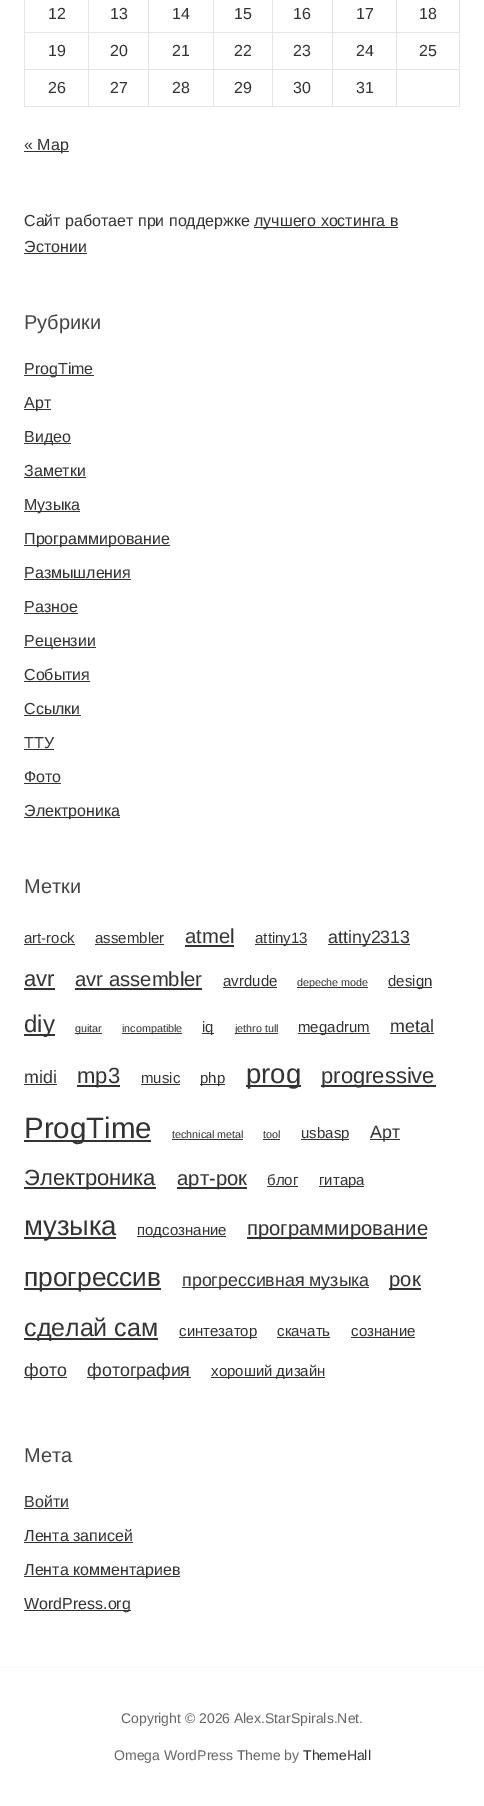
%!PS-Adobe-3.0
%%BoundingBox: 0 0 484 1806
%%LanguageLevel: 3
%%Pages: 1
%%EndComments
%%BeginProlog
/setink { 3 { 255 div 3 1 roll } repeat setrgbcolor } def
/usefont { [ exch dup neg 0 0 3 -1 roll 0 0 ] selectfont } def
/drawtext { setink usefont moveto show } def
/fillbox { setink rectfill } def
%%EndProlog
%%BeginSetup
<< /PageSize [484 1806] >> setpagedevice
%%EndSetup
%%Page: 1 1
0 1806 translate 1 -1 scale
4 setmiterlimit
0 0 484 1806 255 255 255 fillbox
459 0 1 107 229 229 229 fillbox
24 106 436 1 229 229 229 fillbox
24 0 1 107 229 229 229 fillbox
396 69 1 38 229 229 229 fillbox
396 69 64 1 229 229 229 fillbox
396 32 1 38 229 229 229 fillbox
396 32 64 1 229 229 229 fillbox
396 0 1 33 229 229 229 fillbox
332 69 1 38 229 229 229 fillbox
332 69 65 1 229 229 229 fillbox
332 32 1 38 229 229 229 fillbox
332 32 65 1 229 229 229 fillbox
332 0 1 33 229 229 229 fillbox
272 69 1 38 229 229 229 fillbox
272 69 61 1 229 229 229 fillbox
272 32 1 38 229 229 229 fillbox
272 32 61 1 229 229 229 fillbox
272 0 1 33 229 229 229 fillbox
213 69 1 38 229 229 229 fillbox
213 69 60 1 229 229 229 fillbox
213 32 1 38 229 229 229 fillbox
213 32 60 1 229 229 229 fillbox
213 0 1 33 229 229 229 fillbox
148 69 1 38 229 229 229 fillbox
148 69 66 1 229 229 229 fillbox
148 32 1 38 229 229 229 fillbox
148 32 66 1 229 229 229 fillbox
148 0 1 33 229 229 229 fillbox
88 69 1 38 229 229 229 fillbox
88 69 61 1 229 229 229 fillbox
88 32 1 38 229 229 229 fillbox
88 32 61 1 229 229 229 fillbox
88 0 1 33 229 229 229 fillbox
24 32 65 1 229 229 229 fillbox
(12) 48 19 /LiberationSans-Regular 16 51 51 51 drawtext
(13) 110 19 /LiberationSans-Regular 16 51 51 51 drawtext
(14) 172 19 /LiberationSans-Regular 16 51 51 51 drawtext
(15) 234 19 /LiberationSans-Regular 16 51 51 51 drawtext
(16) 293 19 /LiberationSans-Regular 16 51 51 51 drawtext
(17) 356 19 /LiberationSans-Regular 16 51 51 51 drawtext
(18) 419 19 /LiberationSans-Regular 16 51 51 51 drawtext
24 69 65 1 229 229 229 fillbox
(19) 48 56 /LiberationSans-Regular 16 51 51 51 drawtext
(20) 110 56 /LiberationSans-Regular 16 51 51 51 drawtext
(21) 172 56 /LiberationSans-Regular 16 51 51 51 drawtext
(22) 234 56 /LiberationSans-Regular 16 51 51 51 drawtext
(23) 293 56 /LiberationSans-Regular 16 51 51 51 drawtext
(24) 356 56 /LiberationSans-Regular 16 51 51 51 drawtext
(25) 419 56 /LiberationSans-Regular 16 51 51 51 drawtext
(26) 48 93 /LiberationSans-Regular 16 51 51 51 drawtext
(27) 110 93 /LiberationSans-Regular 16 51 51 51 drawtext
(28) 172 93 /LiberationSans-Regular 16 51 51 51 drawtext
(29) 234 93 /LiberationSans-Regular 16 51 51 51 drawtext
(30) 293 93 /LiberationSans-Regular 16 51 51 51 drawtext
(31) 356 93 /LiberationSans-Regular 16 51 51 51 drawtext
24 151 45 1 51 51 51 fillbox
(« Мар) 24 150 /LiberationSans-Regular 16 51 51 51 drawtext
(Сайт работает при поддержке) 24 226 /LiberationSans-Regular 16 51 51 51 drawtext
254 227 144 1 51 51 51 fillbox
(лучшего хостинга в) 254 226 /LiberationSans-Regular 16 51 51 51 drawtext
(Эстонии) 24 252 /LiberationSans-Regular 16 51 51 51 drawtext
24 253 63 1 51 51 51 fillbox
(Рубрики) 24 329 /LiberationSans-Regular 20 68 68 68 drawtext
24 375 70 1 51 51 51 fillbox
(ProgTime) 24 374 /LiberationSans-Regular 16 51 51 51 drawtext
24 409 27 1 51 51 51 fillbox
(Арт) 24 408 /LiberationSans-Regular 16 51 51 51 drawtext
24 443 47 1 51 51 51 fillbox
(Видео) 24 442 /LiberationSans-Regular 16 51 51 51 drawtext
(Заметки) 24 476 /LiberationSans-Regular 16 51 51 51 drawtext
24 477 62 1 51 51 51 fillbox
24 511 56 1 51 51 51 fillbox
(Музыка) 24 510 /LiberationSans-Regular 16 51 51 51 drawtext
24 545 146 1 51 51 51 fillbox
(Программирование) 24 544 /LiberationSans-Regular 16 51 51 51 drawtext
(Размышления) 24 578 /LiberationSans-Regular 16 51 51 51 drawtext
24 579 107 1 51 51 51 fillbox
(Разное) 24 612 /LiberationSans-Regular 16 51 51 51 drawtext
24 613 54 1 51 51 51 fillbox
24 647 72 1 51 51 51 fillbox
(Рецензии) 24 646 /LiberationSans-Regular 16 51 51 51 drawtext
(События) 24 680 /LiberationSans-Regular 16 51 51 51 drawtext
24 681 66 1 51 51 51 fillbox
(Ссылки) 24 714 /LiberationSans-Regular 16 51 51 51 drawtext
24 715 57 1 51 51 51 fillbox
(ТТУ) 24 748 /LiberationSans-Regular 16 51 51 51 drawtext
24 749 30 1 51 51 51 fillbox
(Фото) 24 782 /LiberationSans-Regular 16 51 51 51 drawtext
24 783 37 1 51 51 51 fillbox
24 817 96 1 51 51 51 fillbox
(Электроника) 24 816 /LiberationSans-Regular 16 51 51 51 drawtext
(Метки) 24 893 /LiberationSans-Regular 20 68 68 68 drawtext
(art-rock) 24 943 /LiberationSans-Regular 15 51 51 51 drawtext
24 944 51 1 51 51 51 fillbox
(assembler) 95 943 /LiberationSans-Regular 15 51 51 51 drawtext
95 944 69 1 51 51 51 fillbox
(atmel) 185 943 /LiberationSans-Regular 20.25 51 51 51 drawtext
185 945 49 2 51 51 51 fillbox
255 944 52 1 51 51 51 fillbox
(attiny13) 255 943 /LiberationSans-Regular 15 51 51 51 drawtext
328 944 82 1 51 51 51 fillbox
(attiny2313) 328 943 /LiberationSans-Regular 17.8 51 51 51 drawtext
(avr) 24 986 /LiberationSans-Regular 22 51 51 51 drawtext
24 988 31 2 51 51 51 fillbox
(avr assembler) 75 986 /LiberationSans-Regular 20.25 51 51 51 drawtext
75 988 127 2 51 51 51 fillbox
(avrdude) 223 986 /LiberationSans-Regular 15 51 51 51 drawtext
223 987 54 1 51 51 51 fillbox
297 987 71 1 51 51 51 fillbox
(depeche mode) 297 986 /LiberationSans-Regular 10.75 51 51 51 drawtext
388 987 44 1 51 51 51 fillbox
(design) 388 986 /LiberationSans-Regular 15 51 51 51 drawtext
24 1034 31 2 51 51 51 fillbox
(diy) 24 1032 /LiberationSans-Regular 24 51 51 51 drawtext
75 1033 27 1 51 51 51 fillbox
(guitar) 75 1032 /LiberationSans-Regular 10.75 51 51 51 drawtext
122 1033 60 1 51 51 51 fillbox
(incompatible) 122 1032 /LiberationSans-Regular 10.75 51 51 51 drawtext
202 1033 12 1 51 51 51 fillbox
(iq) 202 1032 /LiberationSans-Regular 15 51 51 51 drawtext
235 1033 43 1 51 51 51 fillbox
(jethro tull) 235 1032 /LiberationSans-Regular 10.75 51 51 51 drawtext
298 1033 72 1 51 51 51 fillbox
(megadrum) 298 1032 /LiberationSans-Regular 15 51 51 51 drawtext
(metal) 390 1032 /LiberationSans-Regular 17.8 51 51 51 drawtext
390 1033 44 1 51 51 51 fillbox
(midi) 24 1083 /LiberationSans-Regular 17.8 51 51 51 drawtext
24 1084 33 1 51 51 51 fillbox
77 1085 43 2 51 51 51 fillbox
(mp3) 77 1083 /LiberationSans-Regular 22 51 51 51 drawtext
(music) 141 1083 /LiberationSans-Regular 15 51 51 51 drawtext
141 1084 39 1 51 51 51 fillbox
200 1084 25 1 51 51 51 fillbox
(php) 200 1083 /LiberationSans-Regular 15 51 51 51 drawtext
246 1085 55 2 51 51 51 fillbox
(prog) 246 1083 /LiberationSans-Regular 27.5 51 51 51 drawtext
321 1085 115 2 51 51 51 fillbox
(progressive) 321 1083 /LiberationSans-Regular 22 51 51 51 drawtext
24 1140 127 2 51 51 51 fillbox
(ProgTime) 24 1138 /LiberationSans-Regular 29.5 51 51 51 drawtext
(technical metal) 172 1138 /LiberationSans-Regular 10.75 51 51 51 drawtext
172 1139 71 1 51 51 51 fillbox
(tool) 263 1138 /LiberationSans-Regular 10.75 51 51 51 drawtext
263 1139 17 1 51 51 51 fillbox
301 1139 48 1 51 51 51 fillbox
(usbasp) 301 1138 /LiberationSans-Regular 15 51 51 51 drawtext
370 1139 30 1 51 51 51 fillbox
(Арт) 370 1138 /LiberationSans-Regular 17.8 51 51 51 drawtext
24 1187 132 2 51 51 51 fillbox
(Электроника) 24 1185 /LiberationSans-Regular 22 51 51 51 drawtext
177 1187 70 2 51 51 51 fillbox
(арт-рок) 177 1185 /LiberationSans-Regular 20.25 51 51 51 drawtext
(блог) 267 1185 /LiberationSans-Regular 15 51 51 51 drawtext
267 1186 31 1 51 51 51 fillbox
319 1186 45 1 51 51 51 fillbox
(гитара) 319 1185 /LiberationSans-Regular 15 51 51 51 drawtext
24 1237 92 2 51 51 51 fillbox
(музыка) 24 1235 /LiberationSans-Regular 27.5 51 51 51 drawtext
137 1236 89 1 51 51 51 fillbox
(подсознание) 137 1235 /LiberationSans-Regular 15 51 51 51 drawtext
247 1237 180 2 51 51 51 fillbox
(программирование) 247 1235 /LiberationSans-Regular 20.25 51 51 51 drawtext
24 1288 137 2 51 51 51 fillbox
(прогрессив) 24 1286 /LiberationSans-Regular 26.25 51 51 51 drawtext
182 1287 187 1 51 51 51 fillbox
(прогрессивная музыка) 182 1286 /LiberationSans-Regular 17.8 51 51 51 drawtext
389 1288 32 2 51 51 51 fillbox
(рок) 389 1286 /LiberationSans-Regular 20.25 51 51 51 drawtext
24 1338 134 2 51 51 51 fillbox
(сделай сам) 24 1336 /LiberationSans-Regular 25 51 51 51 drawtext
179 1337 78 1 51 51 51 fillbox
(синтезатор) 179 1336 /LiberationSans-Regular 15 51 51 51 drawtext
(скачать) 277 1336 /LiberationSans-Regular 15 51 51 51 drawtext
277 1337 53 1 51 51 51 fillbox
(сознание) 351 1336 /LiberationSans-Regular 15 51 51 51 drawtext
351 1337 64 1 51 51 51 fillbox
24 1377 43 1 51 51 51 fillbox
(фото) 24 1376 /LiberationSans-Regular 17.8 51 51 51 drawtext
87 1377 104 1 51 51 51 fillbox
(фотография) 87 1376 /LiberationSans-Regular 17.8 51 51 51 drawtext
211 1377 114 1 51 51 51 fillbox
(хороший дизайн) 211 1376 /LiberationSans-Regular 15 51 51 51 drawtext
(Мета) 24 1462 /LiberationSans-Regular 20 68 68 68 drawtext
(Войти) 24 1507 /LiberationSans-Regular 16 51 51 51 drawtext
24 1508 45 1 51 51 51 fillbox
(Лента записей) 24 1541 /LiberationSans-Regular 16 51 51 51 drawtext
24 1542 109 1 51 51 51 fillbox
24 1576 156 1 51 51 51 fillbox
(Лента комментариев) 24 1575 /LiberationSans-Regular 16 51 51 51 drawtext
24 1610 107 1 51 51 51 fillbox
(WordPress.org) 24 1609 /LiberationSans-Regular 16 51 51 51 drawtext
0 1667 484 1 245 245 245 fillbox
(Copyright © 2026 Alex.StarSpirals.Net.) 121 1723 /LiberationSans-Regular 14 102 102 102 drawtext
(Omega WordPress Theme by) 114 1760 /LiberationSans-Regular 14 102 102 102 drawtext
(ThemeHall) 303 1760 /LiberationSans-Regular 14 51 51 51 drawtext
showpage
%%EOF
